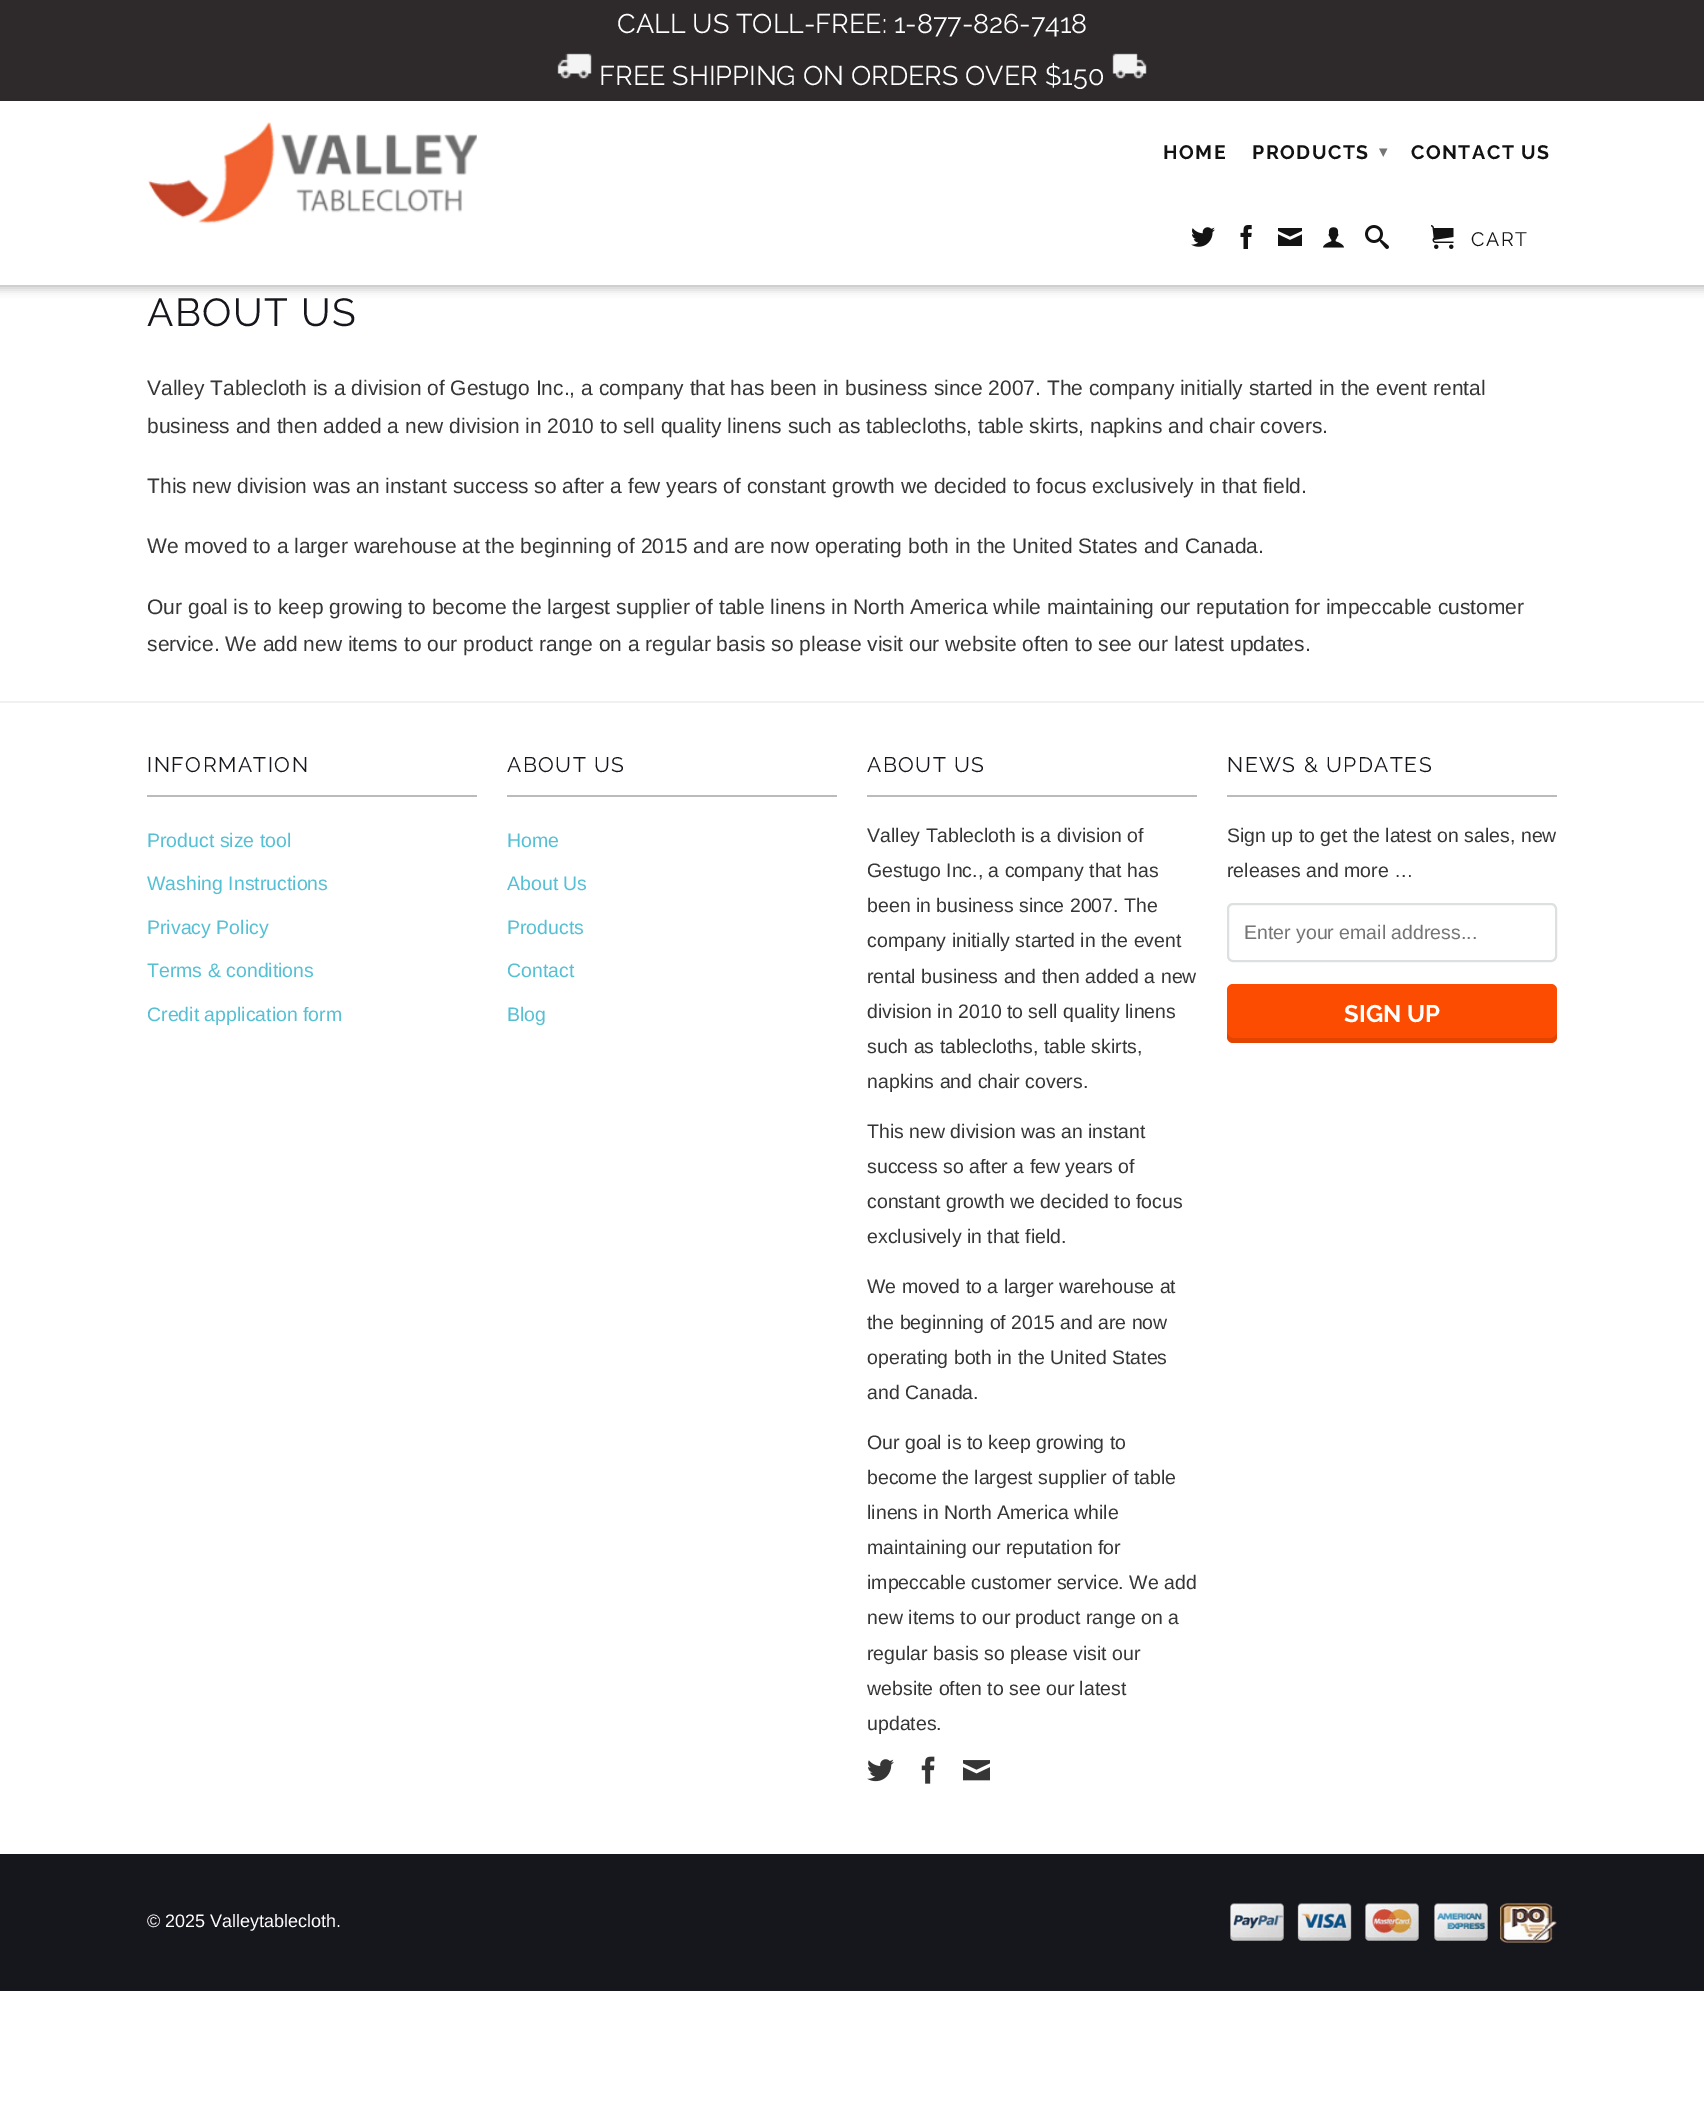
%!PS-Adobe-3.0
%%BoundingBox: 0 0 1704 2123
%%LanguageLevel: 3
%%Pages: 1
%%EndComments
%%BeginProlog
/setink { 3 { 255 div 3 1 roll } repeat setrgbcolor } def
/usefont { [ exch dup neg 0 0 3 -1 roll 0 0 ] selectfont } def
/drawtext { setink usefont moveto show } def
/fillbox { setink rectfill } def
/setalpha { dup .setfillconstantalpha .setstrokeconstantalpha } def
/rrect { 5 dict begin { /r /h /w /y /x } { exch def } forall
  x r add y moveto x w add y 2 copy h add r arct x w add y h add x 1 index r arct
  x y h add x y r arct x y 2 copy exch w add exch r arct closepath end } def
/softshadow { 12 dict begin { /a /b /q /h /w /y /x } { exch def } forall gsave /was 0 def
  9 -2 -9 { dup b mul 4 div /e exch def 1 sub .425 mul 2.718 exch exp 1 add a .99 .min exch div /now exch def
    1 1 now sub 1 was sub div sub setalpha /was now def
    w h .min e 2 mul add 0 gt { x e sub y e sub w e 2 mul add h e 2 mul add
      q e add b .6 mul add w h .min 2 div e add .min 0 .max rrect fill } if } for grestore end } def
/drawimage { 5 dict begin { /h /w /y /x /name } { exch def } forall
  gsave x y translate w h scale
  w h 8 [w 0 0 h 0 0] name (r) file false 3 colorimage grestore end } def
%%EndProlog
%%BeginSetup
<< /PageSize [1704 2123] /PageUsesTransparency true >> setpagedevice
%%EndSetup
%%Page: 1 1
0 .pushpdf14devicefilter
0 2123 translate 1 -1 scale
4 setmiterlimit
0 0 1704 2123 255 255 255 fillbox
207 207 207 setink
-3 -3 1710 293 0 4 1 softshadow
0 101 1704 184 255 255 255 fillbox
0 285 1704 2 207 207 207 fillbox
0 0 1704 101 46 42 43 fillbox
(CALL US TOLL-FREE: 1-877-826-7418) 617 33 /Raleway-Regular 27 255 255 255 drawtext
(assets/img1.rgb) 557 53 35 26 drawimage
(FREE SHIPPING ON ORDERS OVER $150) 599 85 /Raleway-Regular 27 255 255 255 drawtext
(assets/img2.rgb) 1112 53 35 26 drawimage
(assets/img3.rgb) 148 122 329 102 drawimage
/Raleway-Bold 19.5 usefont
18 18 18 setink
1163 159 moveto 1.5 0 (HOME) ashow
1252 159 moveto 1.5 0 (PRODUCTS) ashow
/DejaVuSans-Bold 16 usefont
117 117 117 setink
1379 157 moveto 1.5 0 (▾) ashow
/Raleway-Bold 19.5 usefont
18 18 18 setink
1411 159 moveto 1.5 0 (CONTACT US) ashow
(assets/img4.rgb) 1191 227 24 20 drawimage
(assets/img5.rgb) 1240 225 12 24 drawimage
(assets/img6.rgb) 1278 228 24 18 drawimage
(assets/img7.rgb) 1323 227 21 21 drawimage
(assets/img8.rgb) 1365 225 24 24 drawimage
(assets/img9.rgb) 1431 225 23 24 drawimage
/Raleway-Regular 19.5 usefont
1471 246 moveto 1.5 0 (CART) ashow
/Raleway-Regular 39 usefont
22 22 29 setink
147 326 moveto 1.5 0 (ABOUT US) ashow
(Valley Tablecloth is a division of Gestugo Inc., a company that has been in business since 2007. The company initially started in the event rental) 147 395 /LiberationSans-Regular 21 54 54 54 drawtext
(business and then added a new division in 2010 to sell quality linens such as tablecloths, table skirts, napkins and chair covers.) 147 433 /LiberationSans-Regular 21 54 54 54 drawtext
(This new division was an instant success so after a few years of constant growth we decided to focus exclusively in that field.) 147 493 /LiberationSans-Regular 21 54 54 54 drawtext
(We moved to a larger warehouse at the beginning of 2015 and are now operating both in the United States and Canada.) 147 553 /LiberationSans-Regular 21 54 54 54 drawtext
(Our goal is to keep growing to become the largest supplier of table linens in North America while maintaining our reputation for impeccable customer) 147 614 /LiberationSans-Regular 21 54 54 54 drawtext
(service. We add new items to our product range on a regular basis so please visit our website often to see our latest updates.) 147 651 /LiberationSans-Regular 21 54 54 54 drawtext
0 701 1704 2 241 241 241 fillbox
147 795 330 2 187 187 187 fillbox
/Raleway-Regular 21 usefont
22 22 29 setink
147 772 moveto 1.5 0 (INFORMATION) ashow
(Product size tool) 147 847 /LiberationSans-Regular 19.5 85 192 212 drawtext
(Washing Instructions) 147 890 /LiberationSans-Regular 19.5 85 192 212 drawtext
(Privacy Policy) 147 934 /LiberationSans-Regular 19.5 85 192 212 drawtext
(Terms & conditions) 147 977 /LiberationSans-Regular 19.5 85 192 212 drawtext
(Credit application form) 147 1021 /LiberationSans-Regular 19.5 85 192 212 drawtext
507 795 330 2 187 187 187 fillbox
/Raleway-Regular 21 usefont
22 22 29 setink
507 772 moveto 1.5 0 (ABOUT US) ashow
(Home) 507 847 /LiberationSans-Regular 19.5 85 192 212 drawtext
(About Us) 507 890 /LiberationSans-Regular 19.5 85 192 212 drawtext
(Products) 507 934 /LiberationSans-Regular 19.5 85 192 212 drawtext
(Contact) 507 977 /LiberationSans-Regular 19.5 85 192 212 drawtext
(Blog) 507 1021 /LiberationSans-Regular 19.5 85 192 212 drawtext
867 795 330 2 187 187 187 fillbox
/Raleway-Regular 21 usefont
22 22 29 setink
867 772 moveto 1.5 0 (ABOUT US) ashow
(Valley Tablecloth is a division of) 867 842 /LiberationSans-Regular 19.5 54 54 54 drawtext
(Gestugo Inc., a company that has) 867 877 /LiberationSans-Regular 19.5 54 54 54 drawtext
(been in business since 2007. The) 867 912 /LiberationSans-Regular 19.5 54 54 54 drawtext
(company initially started in the event) 867 947 /LiberationSans-Regular 19.5 54 54 54 drawtext
(rental business and then added a new) 867 983 /LiberationSans-Regular 19.5 54 54 54 drawtext
(division in 2010 to sell quality linens) 867 1018 /LiberationSans-Regular 19.5 54 54 54 drawtext
(such as tablecloths, table skirts,) 867 1053 /LiberationSans-Regular 19.5 54 54 54 drawtext
(napkins and chair covers.) 867 1088 /LiberationSans-Regular 19.5 54 54 54 drawtext
(This new division was an instant) 867 1138 /LiberationSans-Regular 19.5 54 54 54 drawtext
(success so after a few years of) 867 1173 /LiberationSans-Regular 19.5 54 54 54 drawtext
(constant growth we decided to focus) 867 1208 /LiberationSans-Regular 19.5 54 54 54 drawtext
(exclusively in that field.) 867 1243 /LiberationSans-Regular 19.5 54 54 54 drawtext
(We moved to a larger warehouse at) 867 1293 /LiberationSans-Regular 19.5 54 54 54 drawtext
(the beginning of 2015 and are now) 867 1329 /LiberationSans-Regular 19.5 54 54 54 drawtext
(operating both in the United States) 867 1364 /LiberationSans-Regular 19.5 54 54 54 drawtext
(and Canada.) 867 1399 /LiberationSans-Regular 19.5 54 54 54 drawtext
(Our goal is to keep growing to) 867 1449 /LiberationSans-Regular 19.5 54 54 54 drawtext
(become the largest supplier of table) 867 1484 /LiberationSans-Regular 19.5 54 54 54 drawtext
(linens in North America while) 867 1519 /LiberationSans-Regular 19.5 54 54 54 drawtext
(maintaining our reputation for) 867 1554 /LiberationSans-Regular 19.5 54 54 54 drawtext
(impeccable customer service. We add) 867 1589 /LiberationSans-Regular 19.5 54 54 54 drawtext
(new items to our product range on a) 867 1624 /LiberationSans-Regular 19.5 54 54 54 drawtext
(regular basis so please visit our) 867 1660 /LiberationSans-Regular 19.5 54 54 54 drawtext
(website often to see our latest) 867 1695 /LiberationSans-Regular 19.5 54 54 54 drawtext
(updates.) 867 1730 /LiberationSans-Regular 19.5 54 54 54 drawtext
(assets/img10.rgb) 867 1759 27 23 drawimage
(assets/img11.rgb) 921 1756 14 28 drawimage
(assets/img12.rgb) 963 1760 27 21 drawimage
1227 795 330 2 187 187 187 fillbox
/Raleway-Regular 21 usefont
22 22 29 setink
1227 772 moveto 1.5 0 (NEWS & UPDATES) ashow
(Sign up to get the latest on sales, new) 1227 842 /LiberationSans-Regular 19.5 54 54 54 drawtext
(releases and more …) 1227 877 /LiberationSans-Regular 19.5 54 54 54 drawtext
220 224 224 setink
2 setlinewidth
1228 904 328 57 5 rrect stroke
(Enter your email address...) 1244 939 /LiberationSans-Regular 19.5 117 117 117 drawtext
252 76 2 setink
1227 984 330 59 6 rrect fill
0.1 setalpha
0 0 0 setink
1227 1032 moveto 1227 1037 lineto 1227 1040 1230 1043 1233 1043 curveto 1551 1043 lineto 1554 1043 1557 1040 1557 1037 curveto 1557 1032 lineto 1557 1035 1554 1038 1551 1038 curveto 1233 1038 lineto 1230 1038 1227 1035 1227 1032 curveto closepath fill
1 setalpha
(SIGN UP) 1344 1022 /Raleway-Bold 24 255 255 255 drawtext
0 1854 1704 137 22 22 29 fillbox
(© 2025 Valleytablecloth.) 147 1927 /LiberationSans-Regular 18 255 255 255 drawtext
(assets/img13.rgb) 1230 1903 54 38 drawimage
(assets/img14.rgb) 1297 1903 55 39 drawimage
(assets/img15.rgb) 1365 1903 55 39 drawimage
(assets/img16.rgb) 1434 1903 55 39 drawimage
(assets/img17.rgb) 1500 1903 57 40 drawimage
.poppdf14devicefilter showpage
%%EOF
